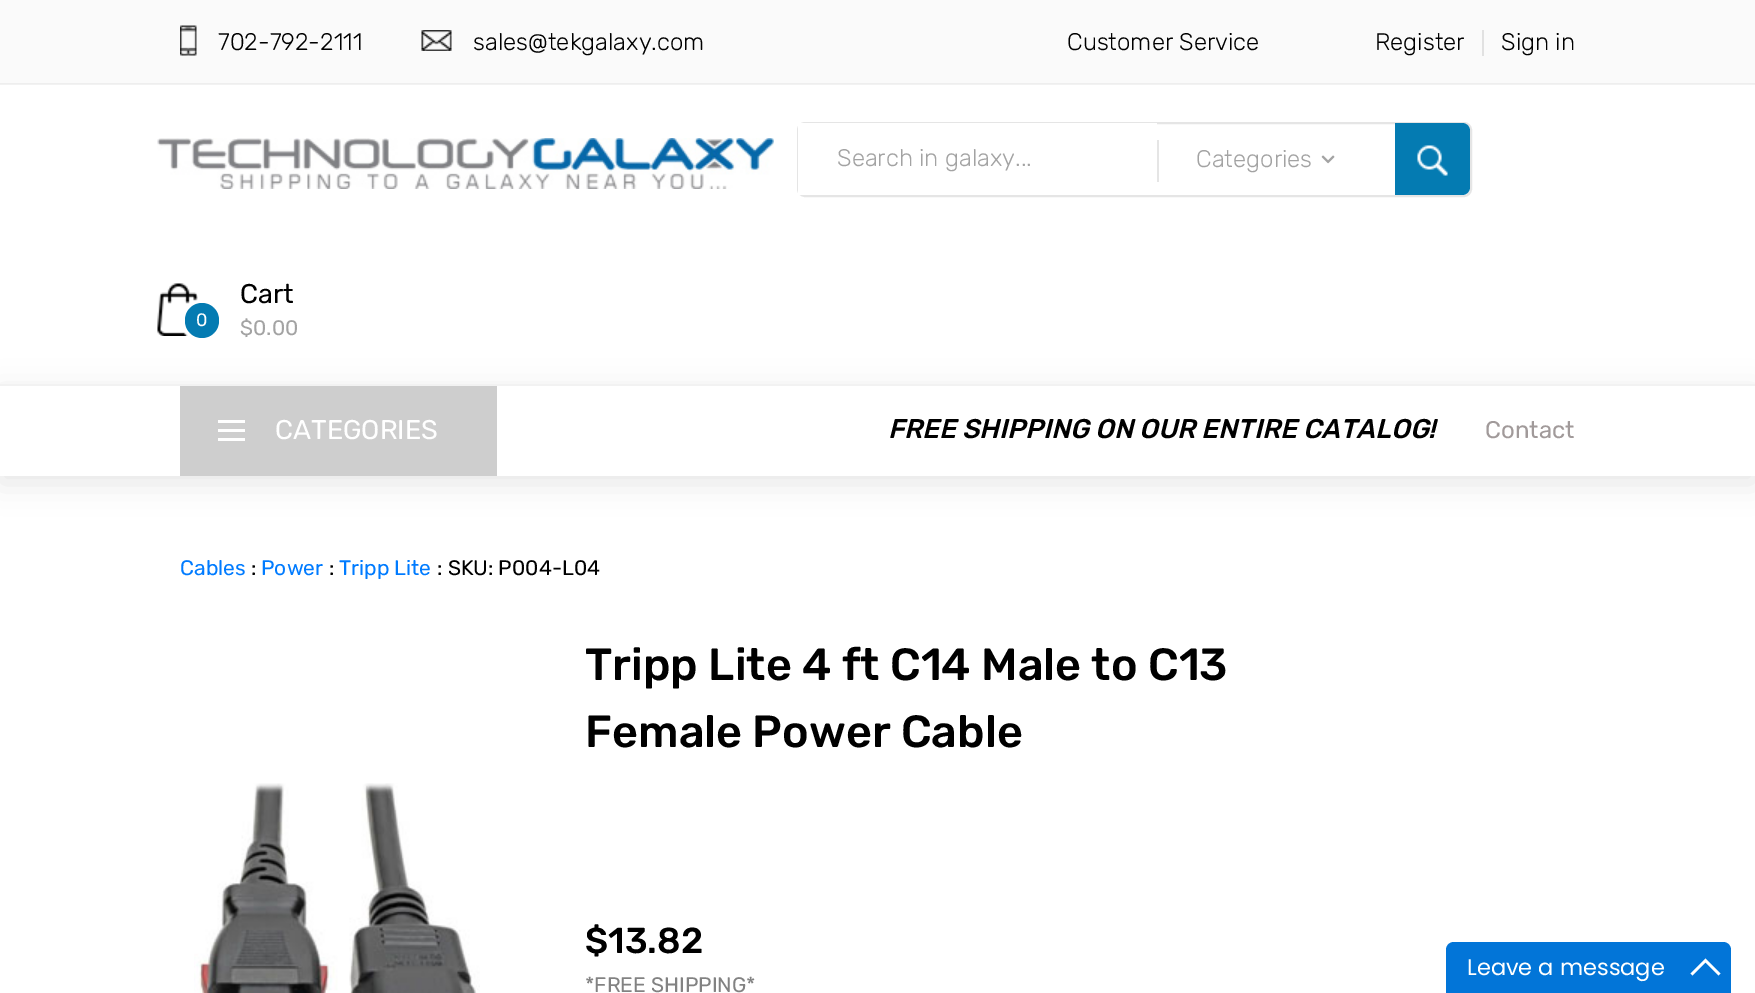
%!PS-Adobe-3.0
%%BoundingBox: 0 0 1755 993
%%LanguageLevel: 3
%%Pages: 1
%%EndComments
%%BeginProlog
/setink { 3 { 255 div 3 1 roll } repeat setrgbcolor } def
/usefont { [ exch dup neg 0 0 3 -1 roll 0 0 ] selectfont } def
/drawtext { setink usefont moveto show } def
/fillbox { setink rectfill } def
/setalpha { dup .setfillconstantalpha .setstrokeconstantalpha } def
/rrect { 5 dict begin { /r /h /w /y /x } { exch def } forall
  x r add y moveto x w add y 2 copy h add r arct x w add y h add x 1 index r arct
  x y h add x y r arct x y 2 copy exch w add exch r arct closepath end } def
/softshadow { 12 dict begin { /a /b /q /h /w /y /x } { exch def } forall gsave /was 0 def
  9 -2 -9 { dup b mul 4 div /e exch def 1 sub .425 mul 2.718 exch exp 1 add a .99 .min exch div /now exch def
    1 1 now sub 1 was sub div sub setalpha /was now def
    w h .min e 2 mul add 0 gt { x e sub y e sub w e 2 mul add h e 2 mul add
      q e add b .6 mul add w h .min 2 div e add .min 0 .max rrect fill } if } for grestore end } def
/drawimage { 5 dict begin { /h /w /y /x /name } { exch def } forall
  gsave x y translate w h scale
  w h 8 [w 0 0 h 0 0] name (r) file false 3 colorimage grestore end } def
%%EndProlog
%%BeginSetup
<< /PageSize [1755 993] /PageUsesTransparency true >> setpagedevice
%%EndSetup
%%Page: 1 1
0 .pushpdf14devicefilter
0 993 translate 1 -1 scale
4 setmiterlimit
0 0 1755 993 255 255 255 fillbox
0 84 1755 1 242 242 242 fillbox
0 0 1755 83 250 250 250 fillbox
0 83 1755 1 238 238 238 fillbox
(assets/img1.rgb) 180 25 17 31 drawimage
(702-792-2111) 218 50 /Rubik-Light 24 0 0 0 drawtext
(assets/img2.rgb) 421 30 31 21 drawimage
(sales@tekgalaxy.com) 473 50 /Rubik-Light 24 0 0 0 drawtext
(Customer Service) 1067 50 /Rubik-Light 24 0 0 0 drawtext
(Register) 1375 50 /Rubik-Light 24 0 0 0 drawtext
1482 30 2 26 225 225 225 fillbox
(Sign in) 1501 50 /Rubik-Light 24 0 0 0 drawtext
(assets/img3.rgb) 157 138 617 51 drawimage
229 229 229 setink
2 setlinewidth
798 123 673 73 7 rrect stroke
798 123 359 72 255 255 255 fillbox
(Search in galaxy...) 837 166 /Rubik-Light 24 163 163 163 drawtext
1157 140 2 42 229 229 229 fillbox
(Categories) 1196 167 /Rubik-Light 24 163 163 163 drawtext
(assets/img4.rgb) 1321 155 14 9 drawimage
4 123 178 setink
1395 123 moveto 1462 123 lineto 1466.5 123 1470 126.5 1470 131 curveto 1470 187 lineto 1470 191.5 1466.5 195 1462 195 curveto 1395 195 lineto closepath fill
(assets/img5.rgb) 1417 145 31 31 drawimage
(assets/img6.rgb) 157 283 41 53 drawimage
185 303 34 35 17 rrect fill
(0) 196 326 /Rubik-Regular 18 255 255 255 drawtext
(Cart) 240 303 /Rubik-Regular 27 0 0 0 drawtext
($0.00) 240 335 /Rubik-Regular 21 163 163 163 drawtext
0 0 0 setink
0 392 1755 91 0 15 0.1 softshadow
0 386 1755 90 255 255 255 fillbox
0 384 1755 2 242 242 242 fillbox
180 386 317 90 206 206 206 fillbox
218 420 27 3 255 255 255 fillbox
218 429 27 3 255 255 255 fillbox
218 438 27 3 255 255 255 fillbox
(CATEGORIES) 275 439 /Rubik-Regular 27 255 255 255 drawtext
(FREE SHIPPING ON OUR ENTIRE CATALOG!) 888 438 /Rubik-MediumItalic 27 0 0 0 drawtext
(Contact) 1485 438 /Rubik-Regular 24 161 154 154 drawtext
(Cables) 180 575 /Rubik-Regular 21 0 123 255 drawtext
(:) 251 575 /Rubik-Regular 21 0 0 0 drawtext
(Power) 261 575 /Rubik-Regular 21 0 123 255 drawtext
(:) 329 575 /Rubik-Regular 21 0 0 0 drawtext
(Tripp Lite) 339 575 /Rubik-Regular 21 0 123 255 drawtext
(: SKU: P004-L04) 437 575 /Rubik-Regular 21 0 0 0 drawtext
(assets/img7.rgb) 194 783 286 210 drawimage
(Tripp Lite 4 ft C14 Male to C13) 585 680 /Rubik-Medium 45 0 0 0 drawtext
(Female Power Cable) 585 747 /Rubik-Medium 45 0 0 0 drawtext
($13.82) 585 953 /Rubik-Medium 36 0 0 0 drawtext
(*FREE SHIPPING*) 585 992 /Rubik-Regular 21 130 130 130 drawtext
2 117 216 setink
1454 942 moveto 1723 942 lineto 1727.5 942 1731 945.5 1731 950 curveto 1731 993 lineto 1446 993 lineto 1446 950 lineto 1446 945.5 1449.5 942 1454 942 curveto closepath fill
(Leave a message) 1467 975 /Poppins-Regular 22.5 255 255 255 drawtext
1705.5 958.5 moveto 1720.5 973.5 lineto 1718.5 975.5 lineto 1705.5 962.5 lineto 1692.5 975.5 lineto 1690.5 973.5 lineto closepath fill
.poppdf14devicefilter showpage
%%EOF
